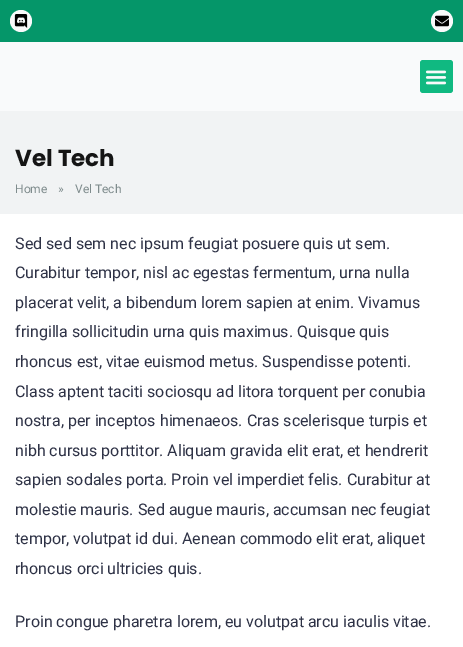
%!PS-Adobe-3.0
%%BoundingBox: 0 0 463 647
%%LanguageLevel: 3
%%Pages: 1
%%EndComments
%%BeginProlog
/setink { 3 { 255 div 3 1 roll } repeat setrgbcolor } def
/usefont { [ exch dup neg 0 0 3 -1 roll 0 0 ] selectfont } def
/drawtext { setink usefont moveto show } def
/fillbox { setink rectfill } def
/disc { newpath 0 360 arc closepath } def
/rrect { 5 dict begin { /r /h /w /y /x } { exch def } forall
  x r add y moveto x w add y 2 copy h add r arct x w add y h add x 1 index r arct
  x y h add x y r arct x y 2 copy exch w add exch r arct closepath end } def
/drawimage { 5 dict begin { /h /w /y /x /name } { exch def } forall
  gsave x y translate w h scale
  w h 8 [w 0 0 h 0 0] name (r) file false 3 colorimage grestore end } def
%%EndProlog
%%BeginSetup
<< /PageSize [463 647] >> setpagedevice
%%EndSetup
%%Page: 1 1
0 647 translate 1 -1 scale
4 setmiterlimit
0 0 463 647 255 255 255 fillbox
0 0 463 42 5 150 105 fillbox
249 250 251 setink
21 21 11 disc fill
(assets/img1.rgb) 14 14 14 14 drawimage
442 21 11 disc fill
(assets/img2.rgb) 435 15 14 12 drawimage
0 42 463 69 249 250 251 fillbox
16 185 129 setink
420 60 33 33 3 rrect fill
(assets/img3.rgb) 425 70 22 15 drawimage
0 111 463 103 241 243 244 fillbox
(Vel Tech) 15 166 /Poppins-Bold 23 21 21 21 drawtext
(Home) 15 193 /Roboto-Regular 12 127 140 141 drawtext
(») 58 193 /Roboto-Regular 12 127 140 141 drawtext
(Vel Tech) 75 193 /Roboto-Regular 12 127 140 141 drawtext
(Sed sed sem nec ipsum feugiat posuere quis ut sem.) 15 249 /Roboto-Regular 16 46 50 70 drawtext
(Curabitur tempor, nisl ac egestas fermentum, urna nulla) 15 278 /Roboto-Regular 16 46 50 70 drawtext
(placerat velit, a bibendum lorem sapien at enim. Vivamus) 15 308 /Roboto-Regular 16 46 50 70 drawtext
(fringilla sollicitudin urna quis maximus. Quisque quis) 15 337 /Roboto-Regular 16 46 50 70 drawtext
(rhoncus est, vitae euismod metus. Suspendisse potenti.) 15 367 /Roboto-Regular 16 46 50 70 drawtext
(Class aptent taciti sociosqu ad litora torquent per conubia) 15 397 /Roboto-Regular 16 46 50 70 drawtext
(nostra, per inceptos himenaeos. Cras scelerisque turpis et) 15 426 /Roboto-Regular 16 46 50 70 drawtext
(nibh cursus porttitor. Aliquam gravida elit erat, et hendrerit) 15 456 /Roboto-Regular 16 46 50 70 drawtext
(sapien sodales porta. Proin vel imperdiet felis. Curabitur at) 15 485 /Roboto-Regular 16 46 50 70 drawtext
(molestie mauris. Sed augue mauris, accumsan nec feugiat) 15 515 /Roboto-Regular 16 46 50 70 drawtext
(tempor, volutpat id dui. Aenean commodo elit erat, aliquet) 15 544 /Roboto-Regular 16 46 50 70 drawtext
(rhoncus orci ultricies quis.) 15 574 /Roboto-Regular 16 46 50 70 drawtext
(Proin congue pharetra lorem, eu volutpat arcu iaculis vitae.) 15 627 /Roboto-Regular 16 46 50 70 drawtext
showpage
%%EOF
